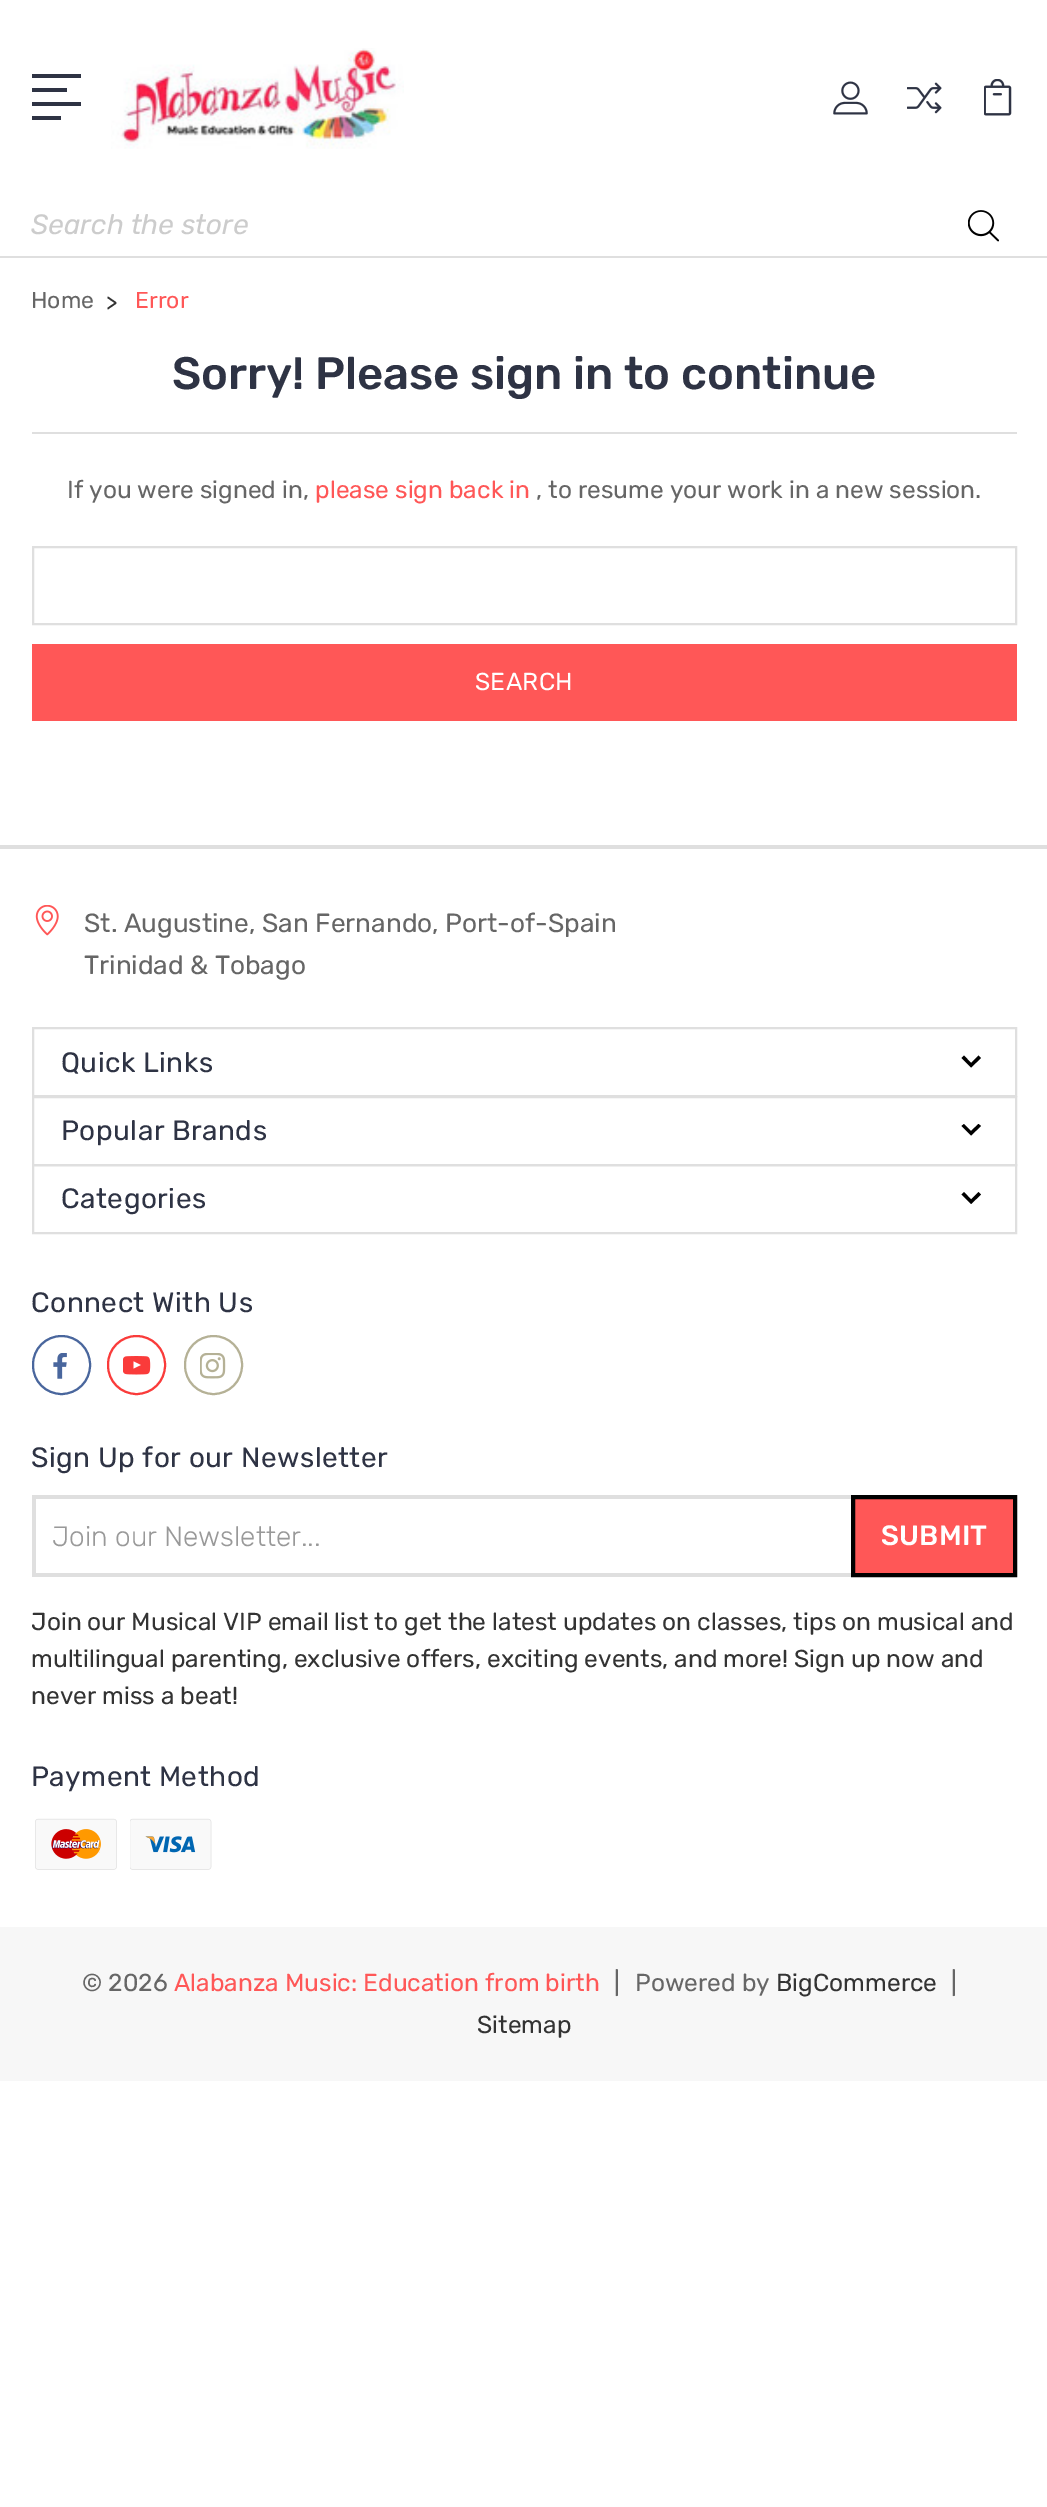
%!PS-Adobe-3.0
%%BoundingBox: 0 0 1047 2507
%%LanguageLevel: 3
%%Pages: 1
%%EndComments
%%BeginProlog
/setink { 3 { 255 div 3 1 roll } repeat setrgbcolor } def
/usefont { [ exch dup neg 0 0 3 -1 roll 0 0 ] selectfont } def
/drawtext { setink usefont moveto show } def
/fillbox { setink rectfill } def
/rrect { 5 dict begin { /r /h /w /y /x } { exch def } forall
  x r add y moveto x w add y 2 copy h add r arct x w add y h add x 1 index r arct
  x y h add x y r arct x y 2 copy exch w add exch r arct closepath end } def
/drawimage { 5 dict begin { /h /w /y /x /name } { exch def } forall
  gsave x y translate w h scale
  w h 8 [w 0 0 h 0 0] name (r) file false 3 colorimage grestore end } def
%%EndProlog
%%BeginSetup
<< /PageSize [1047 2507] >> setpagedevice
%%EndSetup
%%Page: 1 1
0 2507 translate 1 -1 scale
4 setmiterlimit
0 0 1047 2507 255 255 255 fillbox
32 74 49 4 46 51 68 fillbox
32 88 35 4 46 51 68 fillbox
32 102 49 4 46 51 68 fillbox
32 116 29 4 46 51 68 fillbox
(assets/img1.rgb) 111 48 293 101 drawimage
(assets/img2.rgb) 833 81 35 34 drawimage
(assets/img3.rgb) 907 82 35 32 drawimage
(assets/img4.rgb) 984 79 28 37 drawimage
0 256 1047 2 223 223 223 fillbox
(Search the store) 31 234 /Rubik-Italic 28 204 204 204 drawtext
(assets/img5.rgb) 968 210 31 32 drawimage
(Home) 31 308 /Rubik-Regular 23 102 102 102 drawtext
(>) 106 310 /Rubik-Regular 23 51 51 51 drawtext
(Error) 135 308 /Rubik-Regular 23 255 87 87 drawtext
32 432 985 2 223 223 223 fillbox
(Sorry! Please sign in to continue) 172 389 /Rubik-Medium 45.5 46 51 68 drawtext
(If you were signed in,) 67 498 /Rubik-Regular 24.5 102 102 102 drawtext
(please sign back in) 315 498 /Rubik-Regular 24.5 255 87 87 drawtext
(, to resume your work in a new session.) 536 498 /Rubik-Regular 24.5 102 102 102 drawtext
223 223 223 setink
2 setlinewidth
33 547 983 77 rectstroke
32 644 985 77 255 87 87 fillbox
255 255 255 setink
475 690 moveto 0.25 0 (SEARCH) ashow
0 845 1047 4 223 223 223 fillbox
(assets/img6.rgb) 35 905 24 31 drawimage
(St. Augustine, San Fernando, Port-of-Spain) 84 932 /Rubik-Regular 26.25 102 102 102 drawtext
(Trinidad & Tobago) 84 974 /Rubik-Regular 26.25 102 102 102 drawtext
223 223 223 setink
33 1028 983 68 rectstroke
/Rubik-Regular 28 usefont
46 51 68 setink
61 1072 moveto 0.45 0 (Quick Links) ashow
0 0 0 setink
964 1055.5 moveto 971 1063 lineto 978.5 1055.5 lineto 981 1058 lineto 971 1067.5 lineto 961.5 1058 lineto closepath fill
223 223 223 setink
33 1097 983 68 rectstroke
46 51 68 setink
61 1140 moveto 0.45 0 (Popular Brands) ashow
0 0 0 setink
964 1124 moveto 971 1131 lineto 978.5 1124 lineto 981 1126 lineto 971 1135.5 lineto 961.5 1126 lineto closepath fill
223 223 223 setink
33 1165 983 68 rectstroke
46 51 68 setink
61 1208 moveto 0.45 0 (Categories) ashow
0 0 0 setink
964 1192 moveto 971 1199.5 lineto 978.5 1192 lineto 981 1194.5 lineto 971 1204 lineto 961.5 1194.5 lineto closepath fill
46 51 68 setink
31 1312 moveto 0.45 0 (Connect With Us) ashow
73 102 157 setink
33 1336 57 58 28.5 rrect stroke
(assets/img7.rgb) 53 1353 14 26 drawimage
250 59 58 setink
108 1336 57 58 28.5 rrect stroke
(assets/img8.rgb) 123 1356 28 19 drawimage
181 177 150 setink
185 1336 57 58 28.5 rrect stroke
(assets/img9.rgb) 200 1353 26 26 drawimage
46 51 68 setink
31 1467 moveto 0.45 0 (Sign Up for our Newsletter) ashow
32 1495 819 4 223 223 223 fillbox
32 1573 819 4 223 223 223 fillbox
32 1495 4 82 223 223 223 fillbox
(Join our Newsletter...) 52 1546 /Rubik-Light 28 153 153 153 drawtext
255 87 87 setink
853 1497 moveto 1015 1497 lineto 1015 1575 lineto 853 1575 lineto closepath gsave fill grestore
0 0 0 setink
4 setlinewidth
stroke
/Rubik-Medium 28 usefont
255 255 255 setink
881 1545 moveto 0.25 0 (SUBMIT) ashow
(Join our Musical VIP email list to get the latest updates on classes, tips on musical and) 31 1630 /Rubik-Regular 24.5 51 51 51 drawtext
(multilingual parenting, exclusive offers, exciting events, and more! Sign up now and) 31 1667 /Rubik-Regular 24.5 51 51 51 drawtext
(never miss a beat!) 31 1704 /Rubik-Regular 24.5 51 51 51 drawtext
/Rubik-Regular 28 usefont
46 51 68 setink
31 1786 moveto 0.45 0 (Payment Method) ashow
(assets/img10.rgb) 35 1818 82 52 drawimage
(assets/img11.rgb) 130 1818 82 52 drawimage
0 1927 1047 154 247 247 247 fillbox
(© 2026) 82 1991 /Rubik-Regular 24.5 102 102 102 drawtext
(Alabanza Music: Education from birth) 174 1991 /Rubik-Regular 24.5 255 87 87 drawtext
(|) 614 1991 /Rubik-Regular 24.5 102 102 102 drawtext
(Powered by) 635 1991 /Rubik-Regular 24.5 102 102 102 drawtext
(BigCommerce) 776 1991 /Rubik-Regular 24.5 51 51 51 drawtext
(|) 951 1991 /Rubik-Regular 24.5 102 102 102 drawtext
(Sitemap) 477 2033 /Rubik-Regular 24.5 51 51 51 drawtext
showpage
%%EOF
